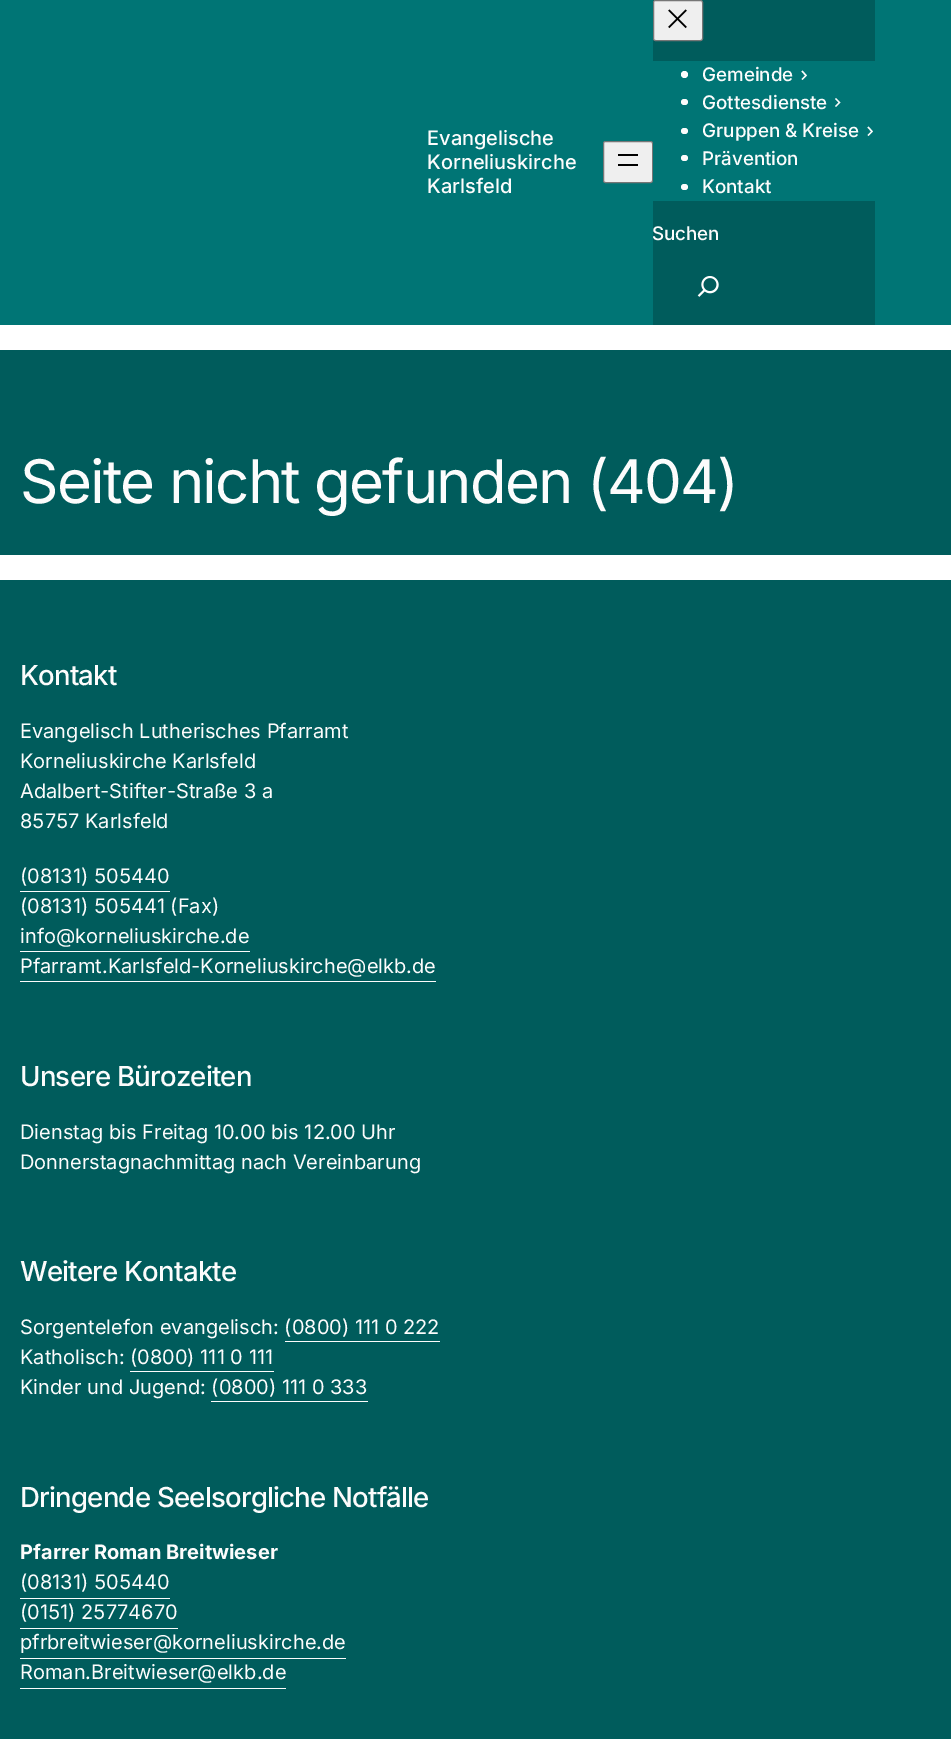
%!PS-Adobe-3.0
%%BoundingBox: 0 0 951 1739
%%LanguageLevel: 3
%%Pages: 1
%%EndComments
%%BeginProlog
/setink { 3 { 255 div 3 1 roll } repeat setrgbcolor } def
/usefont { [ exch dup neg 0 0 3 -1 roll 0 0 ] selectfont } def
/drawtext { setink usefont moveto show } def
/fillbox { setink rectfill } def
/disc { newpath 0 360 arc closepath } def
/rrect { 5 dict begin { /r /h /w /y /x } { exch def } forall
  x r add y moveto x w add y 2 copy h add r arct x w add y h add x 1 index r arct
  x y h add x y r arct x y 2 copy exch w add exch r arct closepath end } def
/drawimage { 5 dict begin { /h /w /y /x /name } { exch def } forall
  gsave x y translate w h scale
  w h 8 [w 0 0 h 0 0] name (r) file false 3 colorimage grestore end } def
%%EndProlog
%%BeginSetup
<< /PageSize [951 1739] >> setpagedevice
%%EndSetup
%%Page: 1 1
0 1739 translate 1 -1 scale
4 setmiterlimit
0 0 951 1739 255 255 255 fillbox
0 0 951 325 0 117 117 fillbox
(Evangelische) 427 145 /Inter-Medium 20 252 252 252 drawtext
(Korneliuskirche) 427 169 /Inter-Medium 20 252 252 252 drawtext
(Karlsfeld) 427 193 /Inter-Medium 20 252 252 252 drawtext
239 239 239 setink
603.5 141.5 49 41 2 rrect gsave fill grestore
118 118 118 setink
stroke
618 154 20 2 0 0 0 fillbox
618 164 20 2 0 0 0 fillbox
653 0 222 325 0 92 92 fillbox
239 239 239 setink
653.5 0.5 49 40 2 rrect gsave fill grestore
118 118 118 setink
stroke
(assets/img1.rgb) 668 9 19 20 drawimage
653 61 222 140 0 117 117 fillbox
252 252 252 setink
684.5 74.5 3.5 disc fill
(Gemeinde) 702 81 /Inter-Medium 18.75 252 252 252 drawtext
1.4 setlinewidth
802 79.5 moveto 806 75.5 lineto 802 71 lineto 835.5 106.5 moveto 839.5 102.5 lineto 835.5 98.5 lineto stroke
681 99 7 6 3 rrect fill
(Gottesdienste) 702 109 /Inter-Medium 18.75 252 252 252 drawtext
681 128 7 6 3 rrect fill
(Gruppen & Kreise) 702 137 /Inter-Medium 18.75 252 252 252 drawtext
868 135.5 moveto 872 131.5 lineto 868 127 lineto stroke
681 155 7 6 3 rrect fill
(Prävention) 702 165 /Inter-Medium 18.75 252 252 252 drawtext
681 184 7 6 3 rrect fill
(Kontakt) 702 193 /Inter-Medium 18.75 252 252 252 drawtext
(Suchen) 652 240 /Inter-Medium 18.75 252 252 252 drawtext
(assets/img2.rgb) 697 276 22 21 drawimage
0 350 951 205 0 92 92 fillbox
/Inter-Regular 60 usefont
252 252 252 setink
20 503 moveto -1.8 0 (Seite nicht gefunden \(404\)) ashow
0 580 951 1159 0 92 92 fillbox
/Inter-Medium 27.6 usefont
252 252 252 setink
20 685 moveto -0.8 0 (Kontakt) ashow
(Evangelisch Lutherisches Pfarramt) 20 738 /Inter-Regular 20 252 252 252 drawtext
(Korneliuskirche Karlsfeld) 20 768 /Inter-Regular 20 252 252 252 drawtext
(Adalbert-Stifter-Straße 3 a) 20 798 /Inter-Regular 20 252 252 252 drawtext
(85757 Karlsfeld) 20 828 /Inter-Regular 20 252 252 252 drawtext
(\(08131\) 505440) 20 883 /Inter-Regular 20 252 252 252 drawtext
20 891 150 1 252 252 252 fillbox
(\(08131\) 505441 \(Fax\)) 20 913 /Inter-Regular 20 252 252 252 drawtext
(info@korneliuskirche.de) 20 943 /Inter-Regular 20 252 252 252 drawtext
20 951 230 1 252 252 252 fillbox
(Pfarramt.Karlsfeld-Korneliuskirche@elkb.de) 20 973 /Inter-Regular 20 252 252 252 drawtext
20 981 416 1 252 252 252 fillbox
/Inter-Medium 27.6 usefont
20 1086 moveto -0.8 0 (Unsere Bürozeiten) ashow
(Dienstag bis Freitag 10.00 bis 12.00 Uhr) 20 1139 /Inter-Regular 20 252 252 252 drawtext
(Donnerstagnachmittag nach Vereinbarung) 20 1169 /Inter-Regular 20 252 252 252 drawtext
/Inter-Medium 27.6 usefont
20 1281 moveto -0.8 0 (Weitere Kontakte) ashow
(Sorgentelefon evangelisch: \(0800\) 111 0 222) 20 1334 /Inter-Regular 20 252 252 252 drawtext
285 1341 155 1 252 252 252 fillbox
(Katholisch: \(0800\) 111 0 111) 20 1364 /Inter-Regular 20 252 252 252 drawtext
130 1371 144 1 252 252 252 fillbox
(Kinder und Jugend: \(0800\) 111 0 333) 20 1394 /Inter-Regular 20 252 252 252 drawtext
211 1401 157 1 252 252 252 fillbox
/Inter-Medium 27.6 usefont
20 1507 moveto -0.8 0 (Dringende Seelsorgliche Notfälle) ashow
(Pfarrer Roman Breitwieser) 20 1559 /Inter-Bold 20 252 252 252 drawtext
(\(08131\) 505440) 20 1589 /Inter-Regular 20 252 252 252 drawtext
20 1598 150 1 252 252 252 fillbox
(\(0151\) 25774670) 20 1619 /Inter-Regular 20 252 252 252 drawtext
20 1628 158 1 252 252 252 fillbox
(pfrbreitwieser@korneliuskirche.de) 20 1649 /Inter-Regular 20 252 252 252 drawtext
20 1658 326 1 252 252 252 fillbox
(Roman.Breitwieser@elkb.de) 20 1679 /Inter-Regular 20 252 252 252 drawtext
20 1688 266 1 252 252 252 fillbox
showpage
%%EOF
